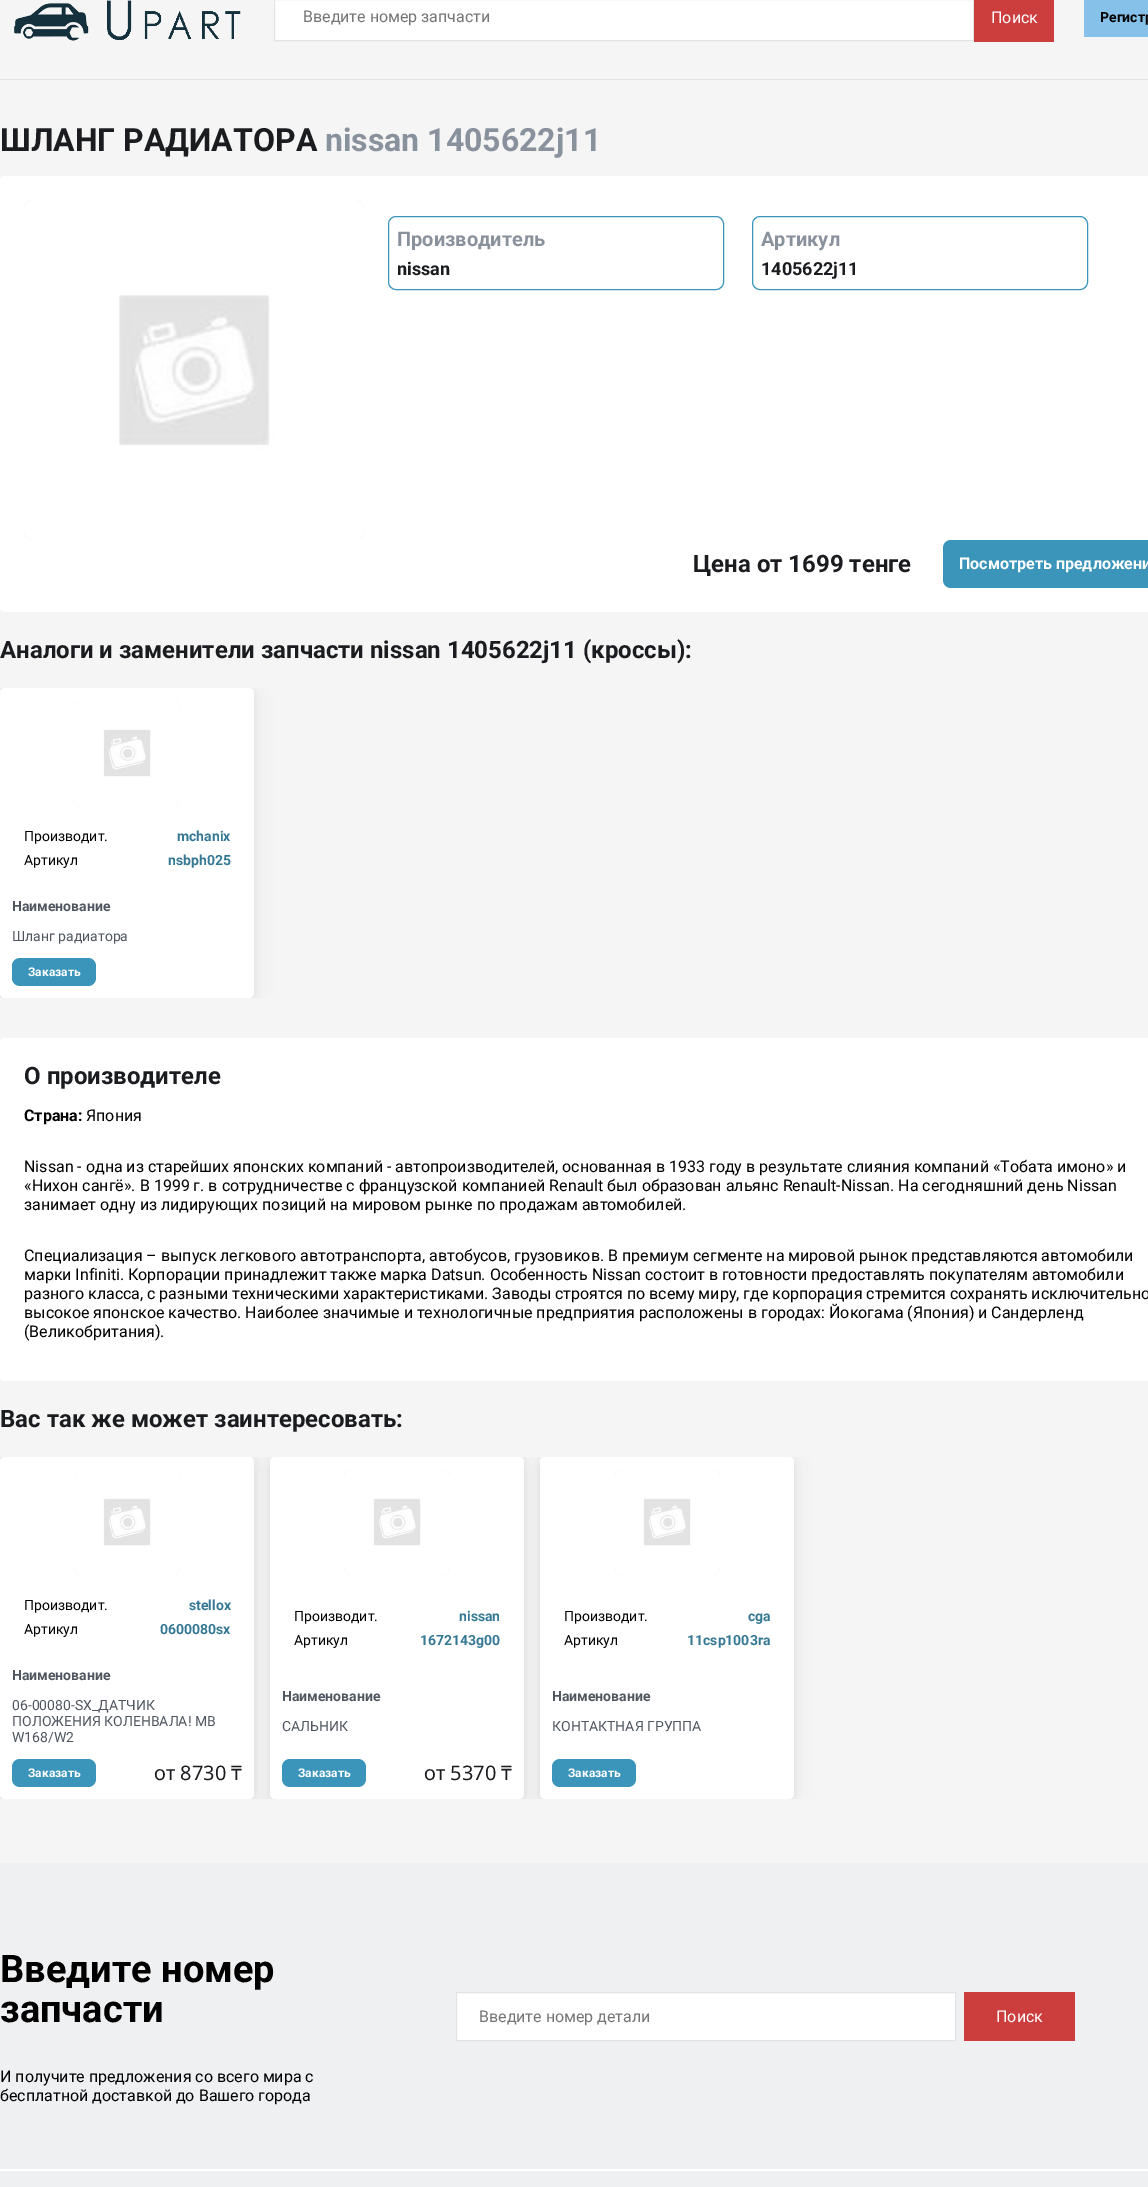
%!PS-Adobe-3.0
%%BoundingBox: 0 0 1148 2187
%%LanguageLevel: 3
%%Pages: 1
%%EndComments
%%BeginProlog
/setink { 3 { 255 div 3 1 roll } repeat setrgbcolor } def
/usefont { [ exch dup neg 0 0 3 -1 roll 0 0 ] selectfont } def
/drawtext { setink usefont moveto show } def
/fillbox { setink rectfill } def
/setalpha { dup .setfillconstantalpha .setstrokeconstantalpha } def
/rrect { 5 dict begin { /r /h /w /y /x } { exch def } forall
  x r add y moveto x w add y 2 copy h add r arct x w add y h add x 1 index r arct
  x y h add x y r arct x y 2 copy exch w add exch r arct closepath end } def
/softshadow { 12 dict begin { /a /b /q /h /w /y /x } { exch def } forall gsave /was 0 def
  9 -2 -9 { dup b mul 4 div /e exch def 1 sub .425 mul 2.718 exch exp 1 add a .99 .min exch div /now exch def
    1 1 now sub 1 was sub div sub setalpha /was now def
    w h .min e 2 mul add 0 gt { x e sub y e sub w e 2 mul add h e 2 mul add
      q e add b .6 mul add w h .min 2 div e add .min 0 .max rrect fill } if } for grestore end } def
/drawimage { 5 dict begin { /h /w /y /x /name } { exch def } forall
  gsave x y translate w h scale
  w h 8 [w 0 0 h 0 0] name (r) file false 3 colorimage grestore end } def
%%EndProlog
%%BeginSetup
<< /PageSize [1148 2187] /PageUsesTransparency true >> setpagedevice
%%EndSetup
%%Page: 1 1
0 .pushpdf14devicefilter
0 2187 translate 1 -1 scale
4 setmiterlimit
0 0 1148 2187 245 245 245 fillbox
0 79 1148 1 227 227 227 fillbox
(assets/img1.rgb) 14 0 227 41 drawimage
255 255 255 setink
274.5 -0.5 moveto 973.5 -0.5 lineto 973.5 40.5 lineto 274.5 40.5 lineto closepath gsave fill grestore
227 227 227 setink
stroke
(Введите номер запчасти) 303 22 /Roboto-Regular 16 117 117 117 drawtext
974 0 80 42 204 61 61 fillbox
(Поиск) 991 23 /Roboto-Regular 16 255 255 255 drawtext
1084 0 64 37 133 193 233 fillbox
(Регистр) 1100 22 /Roboto-Bold 14 0 0 0 drawtext
(ШЛАНГ РАДИАТОРА) 0 151 /Roboto-Bold 32 26 28 31 drawtext
(nissan 1405622j11) 325 151 /Roboto-Bold 32 137 145 156 drawtext
255 255 255 setink
0 176 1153 436 5 rrect fill
224 228 231 setink
24 200 340 340 8 rrect fill
(assets/img2.rgb) 24 200 340 340 drawimage
59 149 186 setink
388.5 216.5 335 73 7.5 rrect stroke
(Производитель) 397 246 /Roboto-Bold 20 137 145 156 drawtext
(nissan) 397 275 /Roboto-Bold 18 26 28 31 drawtext
59 149 186 setink
752.5 216.5 335 73 7.5 rrect stroke
(Артикул) 761 246 /Roboto-Bold 20 137 145 156 drawtext
(1405622j11) 761 275 /Roboto-Bold 18 26 28 31 drawtext
(Цена от 1699 тенге) 693 572 /Roboto-Bold 24 26 28 31 drawtext
59 149 186 setink
943 540 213 48 8 rrect fill
(Посмотреть предложени) 959 569 /Roboto-Bold 16 255 255 255 drawtext
(Аналоги и заменители запчасти nissan 1405622j11 \(кроссы\):) 0 658 /Roboto-Bold 24 26 28 31 drawtext
255 255 255 setink
0 1038 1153 343 5 rrect fill
gsave
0 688 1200 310 rectclip
0 0 0 setink
0 692 254 310 5 12 0.05 softshadow
16 20 45 setink
0 689 254 310 5 4 0.05 softshadow
grestore
0 688 254 310 5 rrect fill
224 228 231 setink
74 700 106 106 8 rrect fill
(assets/img3.rgb) 74 700 106 106 drawimage
(Производит.) 24 841 /Roboto-Regular 14 0 0 0 drawtext
(mchanix) 177 841 /Roboto-Bold 14 53 120 148 drawtext
(Артикул) 24 865 /Roboto-Regular 14 0 0 0 drawtext
(nsbph025) 168 865 /Roboto-Bold 14 53 120 148 drawtext
(Наименование) 12 911 /Roboto-Bold 14 79 86 95 drawtext
(Шланг радиатора) 12 941 /Roboto-Regular 14 79 86 95 drawtext
59 149 186 setink
12 958 84 28 8 rrect fill
(Заказать) 28 976 /Roboto-Bold 12 255 255 255 drawtext
(О производителе) 24 1084 /Roboto-Bold 24 26 28 31 drawtext
(Страна:) 24 1121 /Roboto-Bold 16 0 0 0 drawtext
(Япония) 86 1121 /Roboto-Regular 16 0 0 0 drawtext
(Nissan - одна из старейших японских компаний - автопроизводителей, основанная в 1933 году в результате слияния компаний «Тобата имоно» и) 24 1172 /Roboto-Regular 16 0 0 0 drawtext
(«Нихон сангё». В 1999 г. в сотрудничестве с французcкой компанией Renault был образован альянс Renault-Nissan. На сегодняшний день Nissan) 24 1191 /Roboto-Regular 16 0 0 0 drawtext
(занимает одну из лидирующих позиций на мировом рынке по продажам автомобилей.) 24 1210 /Roboto-Regular 16 0 0 0 drawtext
(Специализация – выпуск легкового автотранспорта, автобусов, грузовиков. В премиум сегменте на мировой рынок представляются автомобили) 24 1261 /Roboto-Regular 16 0 0 0 drawtext
(марки Infiniti. Корпорации принадлежит также марка Datsun. Особенность Nissan состоит в готовности предоставлять покупателям автомобили) 24 1280 /Roboto-Regular 16 0 0 0 drawtext
(разного класса, с разными техническими характеристиками. Заводы строятся по всему миру, где корпорация стремится сохранять исключительно) 24 1299 /Roboto-Regular 16 0 0 0 drawtext
(высокое японское качество. Наиболее значимые и технологичные предприятия расположены в городах: Йокогама \(Япония\) и Сандерленд) 24 1318 /Roboto-Regular 16 0 0 0 drawtext
(\(Великобритания\).) 24 1337 /Roboto-Regular 16 0 0 0 drawtext
(Вас так же может заинтересовать:) 0 1427 /Roboto-Bold 24 26 28 31 drawtext
gsave
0 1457 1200 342 rectclip
0 0 0 setink
0 1461 254 342 5 12 0.05 softshadow
16 20 45 setink
0 1458 254 342 5 4 0.05 softshadow
grestore
255 255 255 setink
0 1457 254 342 5 rrect fill
224 228 231 setink
74 1469 106 106 8 rrect fill
(assets/img3.rgb) 74 1469 106 106 drawimage
(Производит.) 24 1610 /Roboto-Regular 14 0 0 0 drawtext
(stellox) 189 1610 /Roboto-Bold 14 53 120 148 drawtext
(Артикул) 24 1634 /Roboto-Regular 14 0 0 0 drawtext
(0600080sx) 160 1634 /Roboto-Bold 14 53 120 148 drawtext
(Наименование) 12 1680 /Roboto-Bold 14 79 86 95 drawtext
(06-00080-SX_ДАТЧИК) 12 1710 /Roboto-Regular 14 79 86 95 drawtext
(ПОЛОЖЕНИЯ КОЛЕНВАЛА! MB) 12 1726 /Roboto-Regular 14 79 86 95 drawtext
(W168/W2) 12 1742 /Roboto-Regular 14 79 86 95 drawtext
59 149 186 setink
12 1759 84 28 8 rrect fill
(Заказать) 28 1777 /Roboto-Bold 12 255 255 255 drawtext
(от 8730 ₸) 154 1780 /NotoSans-Regular 20 26 28 31 drawtext
gsave
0 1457 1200 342 rectclip
0 0 0 setink
270 1461 254 342 5 12 0.05 softshadow
16 20 45 setink
270 1458 254 342 5 4 0.05 softshadow
grestore
255 255 255 setink
270 1457 254 342 5 rrect fill
224 228 231 setink
344 1469 106 106 8 rrect fill
(assets/img3.rgb) 344 1469 106 106 drawimage
(Производит.) 294 1621 /Roboto-Regular 14 0 0 0 drawtext
(nissan) 459 1621 /Roboto-Bold 14 53 120 148 drawtext
(Артикул) 294 1645 /Roboto-Regular 14 0 0 0 drawtext
(1672143g00) 420 1645 /Roboto-Bold 14 53 120 148 drawtext
(Наименование) 282 1701 /Roboto-Bold 14 79 86 95 drawtext
(САЛЬНИК) 282 1731 /Roboto-Regular 14 79 86 95 drawtext
59 149 186 setink
282 1759 84 28 8 rrect fill
(Заказать) 298 1777 /Roboto-Bold 12 255 255 255 drawtext
(от 5370 ₸) 424 1780 /NotoSans-Regular 20 26 28 31 drawtext
gsave
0 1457 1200 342 rectclip
0 0 0 setink
540 1461 254 342 5 12 0.05 softshadow
16 20 45 setink
540 1458 254 342 5 4 0.05 softshadow
grestore
255 255 255 setink
540 1457 254 342 5 rrect fill
224 228 231 setink
614 1469 106 106 8 rrect fill
(assets/img3.rgb) 614 1469 106 106 drawimage
(Производит.) 564 1621 /Roboto-Regular 14 0 0 0 drawtext
(cga) 748 1621 /Roboto-Bold 14 53 120 148 drawtext
(Артикул) 564 1645 /Roboto-Regular 14 0 0 0 drawtext
(11csp1003ra) 687 1645 /Roboto-Bold 14 53 120 148 drawtext
(Наименование) 552 1701 /Roboto-Bold 14 79 86 95 drawtext
(КОНТАКТНАЯ ГРУППА) 552 1731 /Roboto-Regular 14 79 86 95 drawtext
59 149 186 setink
552 1759 84 28 8 rrect fill
(Заказать) 568 1777 /Roboto-Bold 12 255 255 255 drawtext
0 1863 1148 324 239 240 242 fillbox
0 2169 1148 2 255 255 255 fillbox
(Введите номер) 0 1982 /Roboto-Bold 38 0 0 0 drawtext
(запчасти) 0 2022 /Roboto-Bold 38 0 0 0 drawtext
(И получите предложения со всего мира с) 0 2082 /Roboto-Regular 16 0 0 0 drawtext
(бесплатной доставкой до Вашего города) 0 2101 /Roboto-Regular 16 0 0 0 drawtext
255 255 255 setink
456.5 1992.5 moveto 955.5 1992.5 lineto 955.5 2040.5 lineto 456.5 2040.5 lineto closepath gsave fill grestore
227 227 227 setink
stroke
(Введите номер детали) 479 2022 /Roboto-Regular 16 117 117 117 drawtext
964 1992 111 49 204 61 61 fillbox
(Поиск) 996 2022 /Roboto-Regular 16 255 255 255 drawtext
.poppdf14devicefilter showpage
%%EOF
